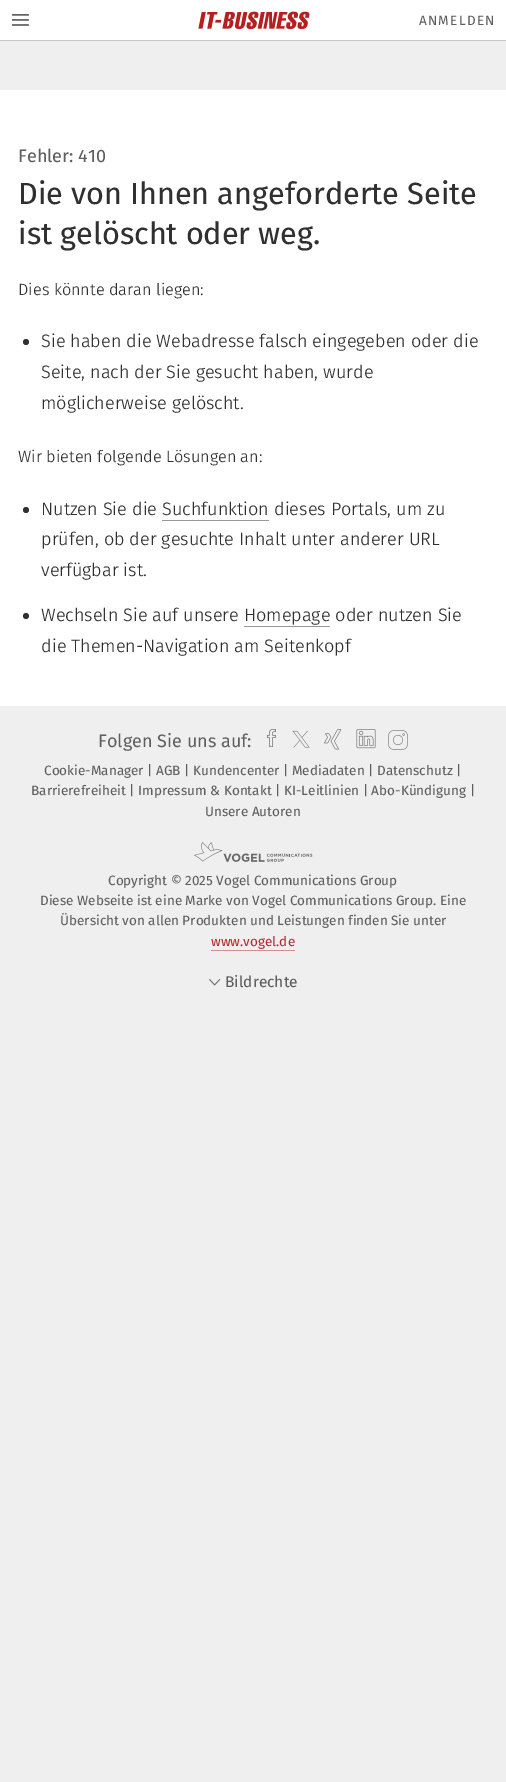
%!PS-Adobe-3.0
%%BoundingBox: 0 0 506 1782
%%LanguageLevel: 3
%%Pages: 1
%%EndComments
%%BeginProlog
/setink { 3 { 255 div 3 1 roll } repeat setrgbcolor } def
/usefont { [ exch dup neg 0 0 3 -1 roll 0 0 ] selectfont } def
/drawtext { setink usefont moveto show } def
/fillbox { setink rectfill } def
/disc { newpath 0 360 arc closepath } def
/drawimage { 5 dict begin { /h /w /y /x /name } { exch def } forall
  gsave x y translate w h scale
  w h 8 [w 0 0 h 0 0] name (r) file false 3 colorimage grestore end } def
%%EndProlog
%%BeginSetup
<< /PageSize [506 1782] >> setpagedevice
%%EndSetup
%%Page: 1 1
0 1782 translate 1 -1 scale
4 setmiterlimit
0 0 506 1782 239 239 239 fillbox
0 90 506 616 255 255 255 fillbox
0 0 506 40 255 255 255 fillbox
0 40 506 1 198 198 198 fillbox
(assets/img1.rgb) 12 14 17 12 drawimage
(assets/img2.rgb) 198 11 112 19 drawimage
/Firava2-Regular 13.5 usefont
94 94 94 setink
419 25 moveto 1.25 0 (ANMELDEN) ashow
(Fehler: 410) 18 162 /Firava-Regular 18 94 94 94 drawtext
(Die von Ihnen angeforderte Seite) 18 204 /Firava-Regular 30.6 48 48 48 drawtext
(ist gelöscht oder weg.) 18 244 /Firava-Regular 30.6 48 48 48 drawtext
(Dies könnte daran liegen:) 18 295 /Firava-Light 16.25 48 48 48 drawtext
26 342 3 disc fill
(Sie haben die Webadresse falsch eingegeben oder die) 41 347 /Firava-Light 18 48 48 48 drawtext
(Seite, nach der Sie gesucht haben, wurde) 41 378 /Firava-Light 18 48 48 48 drawtext
(möglicherweise gelöscht.) 41 409 /Firava-Light 18 48 48 48 drawtext
(Wir bieten folgende Lösungen an:) 18 462 /Firava-Light 16.25 48 48 48 drawtext
26 510 3 disc fill
(Nutzen Sie die Suchfunktion dieses Portals, um zu) 41 515 /Firava-Light 18 48 48 48 drawtext
162 520 107 1 152 152 152 fillbox
(prüfen, ob der gesuchte Inhalt unter anderer URL) 41 545 /Firava-Light 18 48 48 48 drawtext
(verfügbar ist.) 41 576 /Firava-Light 18 48 48 48 drawtext
26 616 3 disc fill
(Wechseln Sie auf unsere Homepage oder nutzen Sie) 41 621 /Firava-Light 18 48 48 48 drawtext
244 626 86 1 152 152 152 fillbox
(die Themen-Navigation am Seitenkopf) 41 652 /Firava-Light 18 48 48 48 drawtext
(Folgen Sie uns auf:) 98 747 /Firava2-Regular 18 94 94 94 drawtext
(assets/img3.rgb) 267 729 9 18 drawimage
(assets/img4.rgb) 292 730 18 18 drawimage
(assets/img5.rgb) 324 729 18 21 drawimage
(assets/img6.rgb) 356 729 20 20 drawimage
(assets/img7.rgb) 388 730 20 20 drawimage
(Cookie-Manager | AGB | Kundencenter | Mediadaten | Datenschutz |) 44 775 /Firava-Regular 13.5 94 94 94 drawtext
(Barrierefreiheit | Impressum & Kontakt | KI-Leitlinien | Abo-Kündigung |) 31 795 /Firava-Regular 13.5 94 94 94 drawtext
(Unsere Autoren) 205 816 /Firava-Regular 13.5 94 94 94 drawtext
(assets/img8.rgb) 193 842 120 20 drawimage
(Copyright © 2025 Vogel Communications Group) 108 885 /Firava-Regular 13.5 94 94 94 drawtext
(Diese Webseite ist eine Marke von Vogel Communications Group. Eine) 40 905 /Firava-Regular 13.5 94 94 94 drawtext
(Übersicht von allen Produkten und Leistungen finden Sie unter) 60 925 /Firava-Regular 13.5 94 94 94 drawtext
(www.vogel.de) 211 946 /Firava-Regular 13.5 185 42 49 drawtext
211 950 84 1 212 141 144 fillbox
(assets/img9.rgb) 209 979 12 7 drawimage
(Bildrechte) 225 987 /Firava-Regular 15.5 94 94 94 drawtext
showpage
%%EOF
